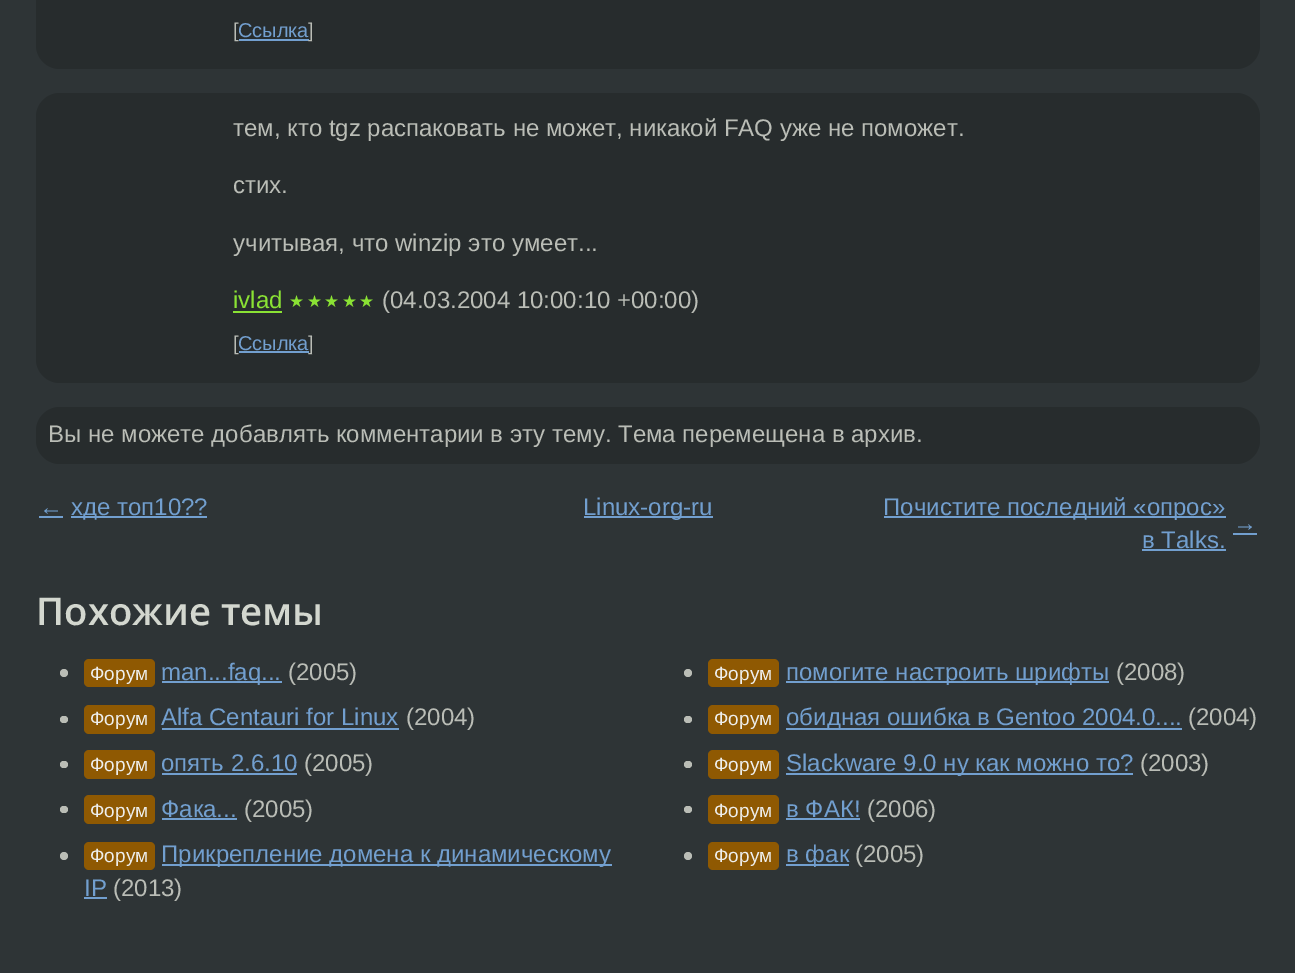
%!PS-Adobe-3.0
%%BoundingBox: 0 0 1295 973
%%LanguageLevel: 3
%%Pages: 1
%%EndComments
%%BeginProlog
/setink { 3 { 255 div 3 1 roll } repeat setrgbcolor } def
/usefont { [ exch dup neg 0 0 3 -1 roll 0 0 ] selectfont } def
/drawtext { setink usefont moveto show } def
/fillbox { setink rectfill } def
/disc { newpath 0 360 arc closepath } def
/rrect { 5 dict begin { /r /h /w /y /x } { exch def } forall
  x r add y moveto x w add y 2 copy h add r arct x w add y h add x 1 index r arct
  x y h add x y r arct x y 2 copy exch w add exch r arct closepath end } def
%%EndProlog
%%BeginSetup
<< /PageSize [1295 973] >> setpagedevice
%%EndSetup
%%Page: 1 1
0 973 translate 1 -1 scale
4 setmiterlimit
0 0 1295 973 46 52 54 fillbox
39 44 45 setink
36 -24 1224 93 24 rrect fill
([) 233 37 /LiberationSans-Regular 20 186 189 182 drawtext
(Ссылка) 238 37 /LiberationSans-Regular 20 114 159 207 drawtext
239 39 70 2 114 159 207 fillbox
(]) 308 37 /LiberationSans-Regular 20 186 189 182 drawtext
39 44 45 setink
36 93 1224 290 24 rrect fill
(тем, кто tgz распаковать не может, никакой FAQ уже не поможет.) 233 136 /LiberationSans-Regular 24 186 189 182 drawtext
(стих.) 233 193 /LiberationSans-Regular 24 186 189 182 drawtext
(учитывая, что winzip это умеет...) 233 251 /LiberationSans-Regular 24 186 189 182 drawtext
(ivlad) 233 308 /LiberationSans-Regular 24 138 226 52 drawtext
233 311 49 2 138 226 52 fillbox
/DejaVuSans-Regular 16.75 usefont
289 307 moveto 2.5 0 (★★★★★) ashow
(\(04.03.2004 10:00:10 +00:00\)) 382 308 /LiberationSans-Regular 24 186 189 182 drawtext
([) 233 350 /LiberationSans-Regular 20 186 189 182 drawtext
(Ссылка) 238 350 /LiberationSans-Regular 20 114 159 207 drawtext
239 351 70 2 114 159 207 fillbox
(]) 308 350 /LiberationSans-Regular 20 186 189 182 drawtext
39 44 45 setink
36 407 1224 57 24 rrect fill
(Вы не можете добавлять комментарии в эту тему. Тема перемещена в архив.) 48 442 /LiberationSans-Regular 24 186 189 182 drawtext
(←) 39 515 /LiberationSans-Regular 24 114 159 207 drawtext
39 516 24 2 114 159 207 fillbox
71 516 136 2 114 159 207 fillbox
(хде топ10??) 71 515 /LiberationSans-Regular 24 114 159 207 drawtext
584 516 129 2 114 159 207 fillbox
(Linux-org-ru) 583 515 /LiberationSans-Regular 24 114 159 207 drawtext
884 516 342 2 114 159 207 fillbox
(Почистите последний «опрос») 883 515 /LiberationSans-Regular 24 114 159 207 drawtext
(в Talks.) 1142 548 /LiberationSans-Regular 24 114 159 207 drawtext
1142 549 84 2 114 159 207 fillbox
(→) 1233 531 /LiberationSans-Regular 24 114 159 207 drawtext
1233 533 24 2 114 159 207 fillbox
(Похожие темы) 36 625 /OpenSans-SemiBold 38.25 211 215 207 drawtext
186 189 182 setink
64 673 4 disc fill
143 89 2 setink
84 659 71 28 5 rrect fill
(Форум) 90 680 /LiberationSans-Regular 19 238 238 236 drawtext
162 681 120 2 114 159 207 fillbox
(man...faq...) 161 680 /LiberationSans-Regular 24 114 159 207 drawtext
(\(2005\)) 288 680 /LiberationSans-Regular 24 186 189 182 drawtext
60 716 8 7 3.5 rrect fill
143 89 2 setink
84 705 71 29 5 rrect fill
(Форум) 90 725 /LiberationSans-Regular 19 238 238 236 drawtext
(Alfa Centauri for Linux) 161 725 /LiberationSans-Regular 24 114 159 207 drawtext
162 728 237 2 114 159 207 fillbox
(\(2004\)) 406 725 /LiberationSans-Regular 24 186 189 182 drawtext
60 761 8 7 3.5 rrect fill
143 89 2 setink
84 750 71 29 5 rrect fill
(Форум) 90 771 /LiberationSans-Regular 19 238 238 236 drawtext
(опять 2.6.10) 161 771 /LiberationSans-Regular 24 114 159 207 drawtext
162 773 135 2 114 159 207 fillbox
(\(2005\)) 304 771 /LiberationSans-Regular 24 186 189 182 drawtext
60 806 8 7 3.5 rrect fill
143 89 2 setink
84 795 71 29 5 rrect fill
(Форум) 90 817 /LiberationSans-Regular 19 238 238 236 drawtext
(Фака...) 161 817 /LiberationSans-Regular 24 114 159 207 drawtext
162 818 75 2 114 159 207 fillbox
(\(2005\)) 244 817 /LiberationSans-Regular 24 186 189 182 drawtext
64 856 4 disc fill
143 89 2 setink
84 842 71 28 5 rrect fill
(Форум) 90 862 /LiberationSans-Regular 19 238 238 236 drawtext
162 864 450 2 114 159 207 fillbox
(Прикрепление домена к динамическому) 161 862 /LiberationSans-Regular 24 114 159 207 drawtext
(IP) 84 896 /LiberationSans-Regular 24 114 159 207 drawtext
84 897 23 2 114 159 207 fillbox
(\(2013\)) 113 896 /LiberationSans-Regular 24 186 189 182 drawtext
688 673 4 disc fill
143 89 2 setink
708 659 71 28 5 rrect fill
(Форум) 714 680 /LiberationSans-Regular 19 238 238 236 drawtext
786 681 323 2 114 159 207 fillbox
(помогите настроить шрифты) 786 680 /LiberationSans-Regular 24 114 159 207 drawtext
(\(2008\)) 1116 680 /LiberationSans-Regular 24 186 189 182 drawtext
684 716 8 7 3.5 rrect fill
143 89 2 setink
708 705 71 29 5 rrect fill
(Форум) 714 725 /LiberationSans-Regular 19 238 238 236 drawtext
786 728 396 2 114 159 207 fillbox
(обидная ошибка в Gentoo 2004.0....) 786 725 /LiberationSans-Regular 24 114 159 207 drawtext
(\(2004\)) 1188 725 /LiberationSans-Regular 24 186 189 182 drawtext
684 761 8 7 3.5 rrect fill
143 89 2 setink
708 750 71 29 5 rrect fill
(Форум) 714 771 /LiberationSans-Regular 19 238 238 236 drawtext
786 773 347 2 114 159 207 fillbox
(Slackware 9.0 ну как можно то?) 786 771 /LiberationSans-Regular 24 114 159 207 drawtext
(\(2003\)) 1140 771 /LiberationSans-Regular 24 186 189 182 drawtext
684 806 8 7 3.5 rrect fill
143 89 2 setink
708 795 71 29 5 rrect fill
(Форум) 714 817 /LiberationSans-Regular 19 238 238 236 drawtext
(в ФАК!) 786 817 /LiberationSans-Regular 24 114 159 207 drawtext
786 818 74 2 114 159 207 fillbox
(\(2006\)) 867 817 /LiberationSans-Regular 24 186 189 182 drawtext
688 856 4 disc fill
143 89 2 setink
708 842 71 28 5 rrect fill
(Форум) 714 862 /LiberationSans-Regular 19 238 238 236 drawtext
786 864 63 2 114 159 207 fillbox
(в фак) 786 862 /LiberationSans-Regular 24 114 159 207 drawtext
(\(2005\)) 855 862 /LiberationSans-Regular 24 186 189 182 drawtext
showpage
%%EOF
